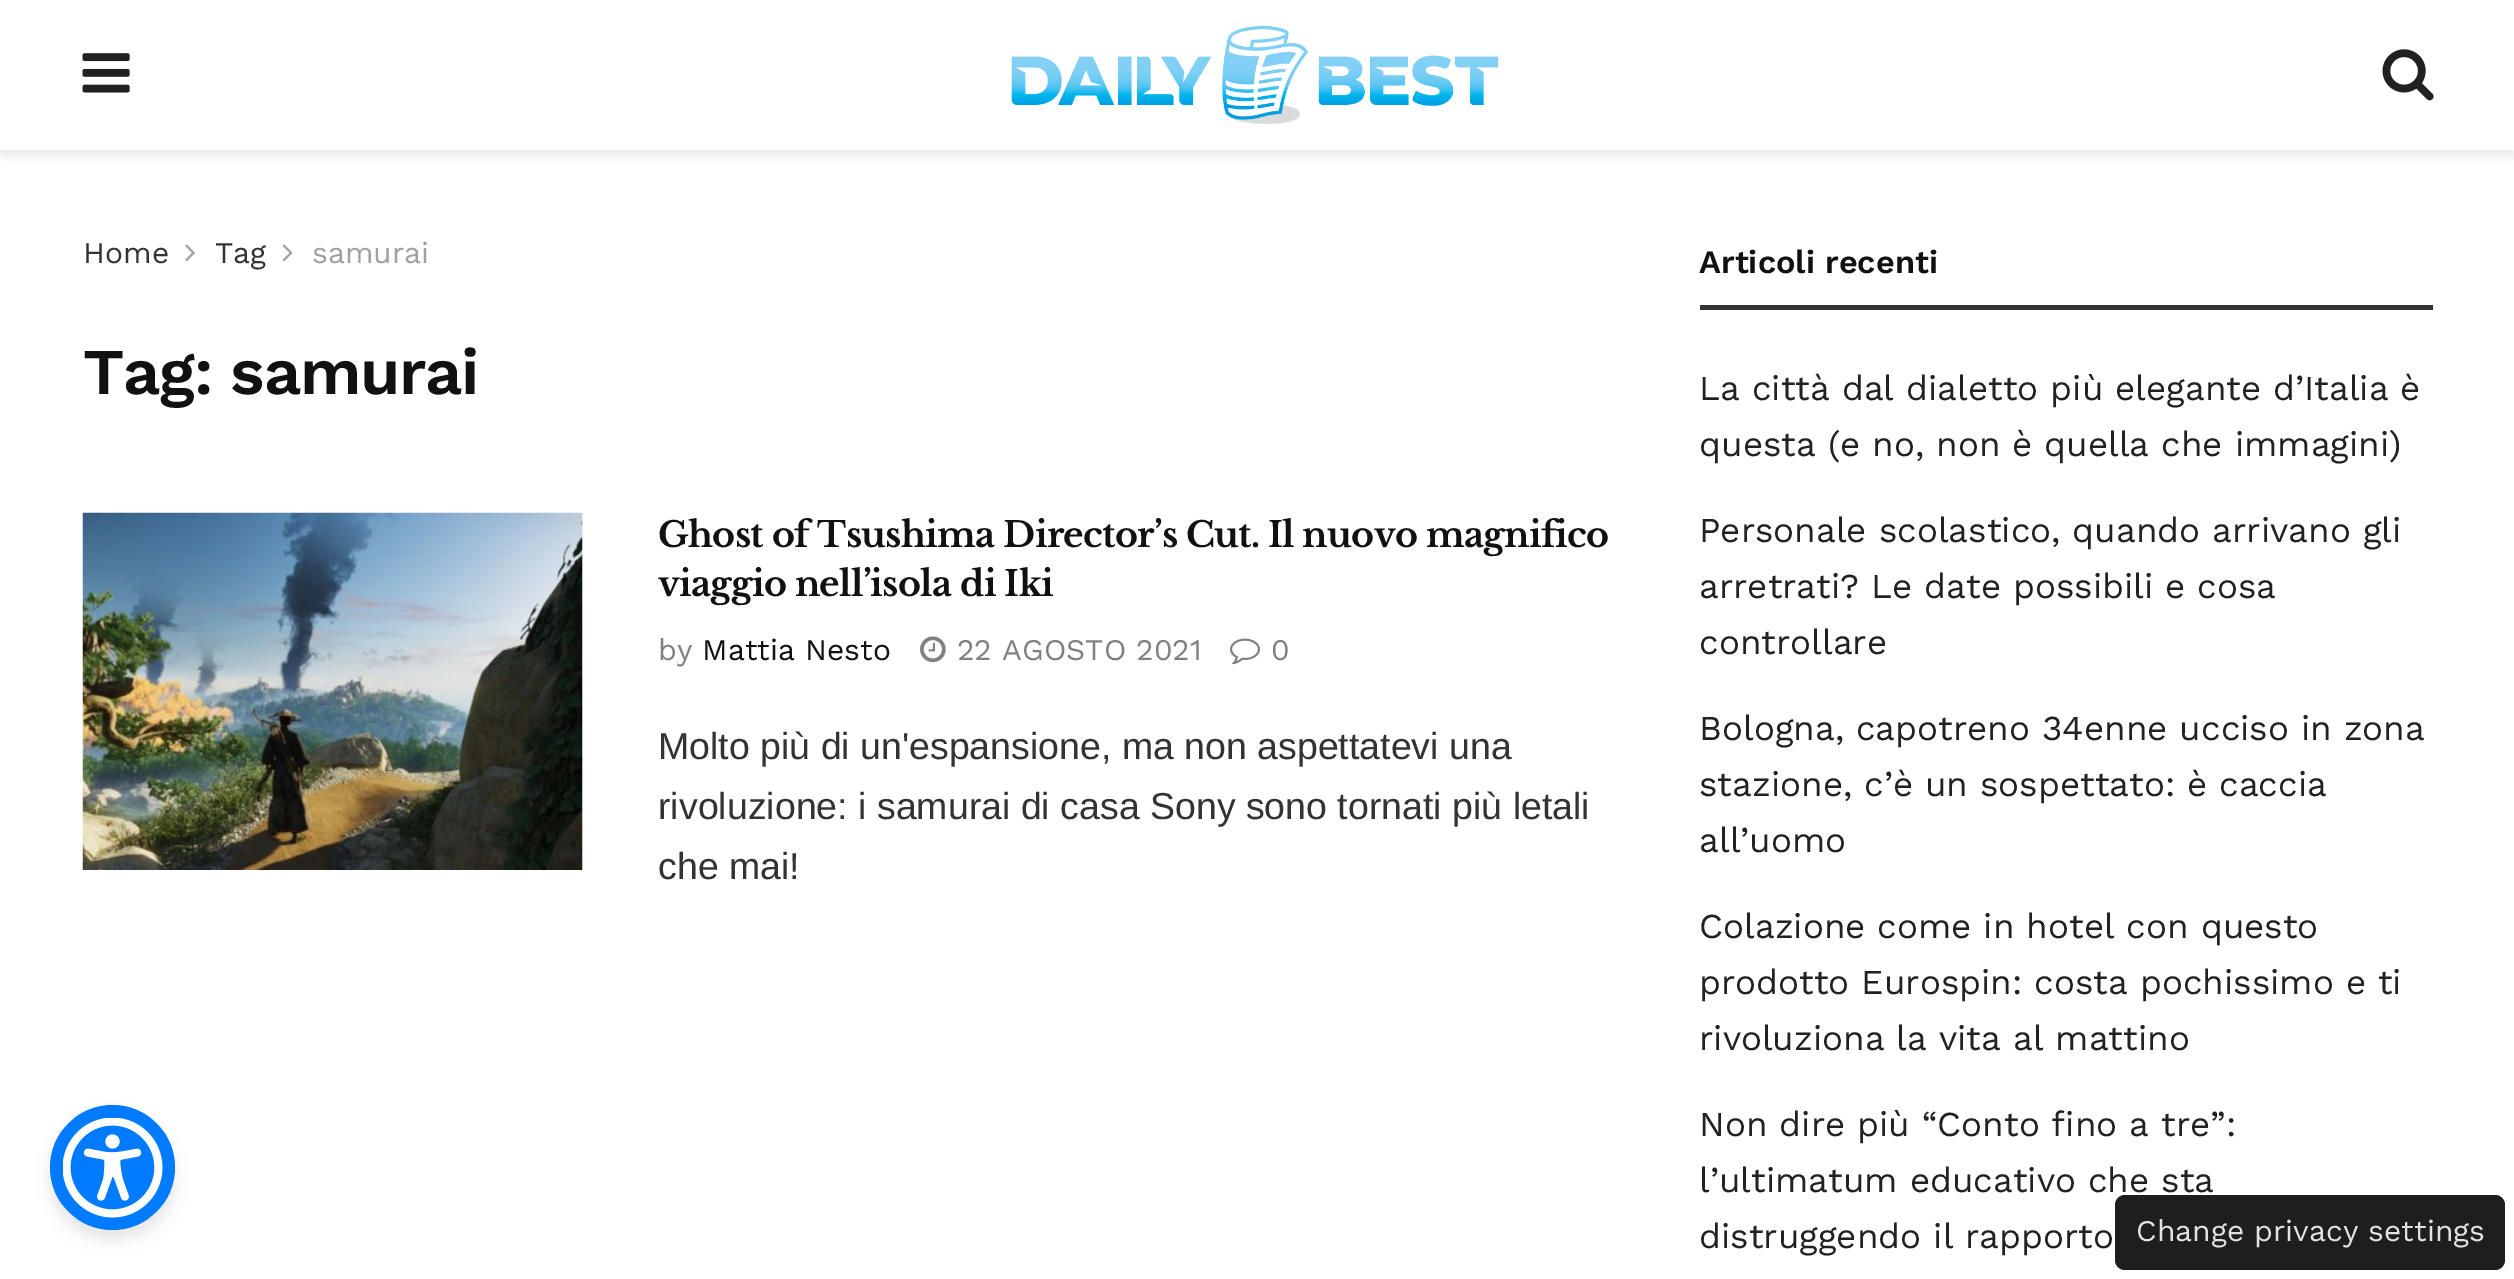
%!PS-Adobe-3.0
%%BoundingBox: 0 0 2514 1279
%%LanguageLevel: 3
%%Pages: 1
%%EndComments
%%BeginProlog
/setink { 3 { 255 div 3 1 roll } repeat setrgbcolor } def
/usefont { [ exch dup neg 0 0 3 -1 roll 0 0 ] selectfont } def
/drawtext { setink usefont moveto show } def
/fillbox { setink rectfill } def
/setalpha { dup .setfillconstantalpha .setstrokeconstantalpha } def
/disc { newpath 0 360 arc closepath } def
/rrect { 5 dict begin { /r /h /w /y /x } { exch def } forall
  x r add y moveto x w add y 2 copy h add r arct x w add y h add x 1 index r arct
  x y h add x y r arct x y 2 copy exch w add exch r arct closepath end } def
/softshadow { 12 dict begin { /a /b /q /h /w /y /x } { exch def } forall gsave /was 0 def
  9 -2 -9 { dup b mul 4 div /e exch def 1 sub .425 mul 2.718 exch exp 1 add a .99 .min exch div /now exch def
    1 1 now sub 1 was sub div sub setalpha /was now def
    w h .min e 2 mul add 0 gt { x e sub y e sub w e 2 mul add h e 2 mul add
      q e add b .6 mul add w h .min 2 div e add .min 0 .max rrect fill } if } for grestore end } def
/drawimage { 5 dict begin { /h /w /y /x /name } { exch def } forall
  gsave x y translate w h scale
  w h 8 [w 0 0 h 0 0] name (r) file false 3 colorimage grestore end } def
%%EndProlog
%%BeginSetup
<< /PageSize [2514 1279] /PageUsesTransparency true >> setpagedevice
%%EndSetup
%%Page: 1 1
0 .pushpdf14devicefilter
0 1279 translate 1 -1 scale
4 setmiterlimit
0 0 2514 1279 255 255 255 fillbox
gsave
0 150 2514 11 rectclip
0 0 0 setink
0 5 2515 150 0 7.5 0.1 softshadow
grestore
(assets/img1.rgb) 82 53 48 40 drawimage
(assets/img2.rgb) 1011 25 488 99 drawimage
(assets/img3.rgb) 2382 49 52 52 drawimage
(Home) 83 263 /WorkSans-Regular 30 51 51 51 drawtext
(assets/img4.rgb) 185 244 10 18 drawimage
(Tag) 215 263 /WorkSans-Regular 30 51 51 51 drawtext
(assets/img5.rgb) 282 244 11 18 drawimage
(samurai) 312 263 /WorkSans-Regular 30 160 160 160 drawtext
/WorkSans-SemiBold 65 usefont
17 17 17 setink
83 394 moveto -1.25 0 (Tag: samurai) ashow
582 513 1 357 247 247 247 fillbox
(assets/img7.rgb) 428 512 100 1 drawimage
(assets/img6.rgb) 82 512 501 358 drawimage
/LibreBaskerville-Bold 35 usefont
17 17 17 setink
658 547 moveto -0.7 0 (Ghost of Tsushima Director’s Cut. Il nuovo magnifico) ashow
658 596 moveto -0.7 0 (viaggio nell’isola di Iki) ashow
(by) 658 660 /WorkSans-Regular 30 128 128 128 drawtext
(Mattia Nesto) 702 660 /WorkSans-Regular 30 17 17 17 drawtext
(assets/img8.rgb) 920 636 26 27 drawimage
(22 AGOSTO 2021) 957 660 /WorkSans-Regular 30 128 128 128 drawtext
(assets/img9.rgb) 1230 638 30 27 drawimage
(0) 1271 660 /WorkSans-Regular 30 128 128 128 drawtext
(Molto più di un'espansione, ma non aspettatevi una) 658 759 /LiberationSans-Regular 37.5 51 51 51 drawtext
(rivoluzione: i samurai di casa Sony sono tornati più letali) 658 819 /LiberationSans-Regular 37.5 51 51 51 drawtext
(che mai!) 658 879 /LiberationSans-Regular 37.5 51 51 51 drawtext
1700 305 733 5 51 51 51 fillbox
(Articoli recenti) 1699 273 /WorkSans-SemiBold 32.5 17 17 17 drawtext
(La città dal dialetto più elegante d’Italia è) 1699 400 /WorkSans-Regular 35 33 33 33 drawtext
(questa \(e no, non è quella che immagini\)) 1699 456 /WorkSans-Regular 35 33 33 33 drawtext
(Personale scolastico, quando arrivano gli) 1699 542 /WorkSans-Regular 35 33 33 33 drawtext
(arretrati? Le date possibili e cosa) 1699 598 /WorkSans-Regular 35 33 33 33 drawtext
(controllare) 1699 654 /WorkSans-Regular 35 33 33 33 drawtext
(Bologna, capotreno 34enne ucciso in zona) 1699 740 /WorkSans-Regular 35 33 33 33 drawtext
(stazione, c’è un sospettato: è caccia) 1699 796 /WorkSans-Regular 35 33 33 33 drawtext
(all’uomo) 1699 852 /WorkSans-Regular 35 33 33 33 drawtext
(Colazione come in hotel con questo) 1699 938 /WorkSans-Regular 35 33 33 33 drawtext
(prodotto Eurospin: costa pochissimo e ti) 1699 994 /WorkSans-Regular 35 33 33 33 drawtext
(rivoluziona la vita al mattino) 1699 1050 /WorkSans-Regular 35 33 33 33 drawtext
(Non dire più “Conto fino a tre”:) 1699 1136 /WorkSans-Regular 35 33 33 33 drawtext
(l’ultimatum educativo che sta) 1699 1192 /WorkSans-Regular 35 33 33 33 drawtext
(distruggendo il rapporto) 1699 1248 /WorkSans-Regular 35 33 33 33 drawtext
0 0 0 setink
50 1115 125 125 62.5 7.5 0.1 softshadow
0 123 255 setink
112.5 1167.5 62.5 disc fill
(assets/img10.rgb) 63 1118 100 100 drawimage
30 30 30 setink
2115 1195 390 75 10 rrect fill
(Change privacy settings) 2136 1241 /WorkSans-Regular 30 227 225 225 drawtext
.poppdf14devicefilter showpage
%%EOF
